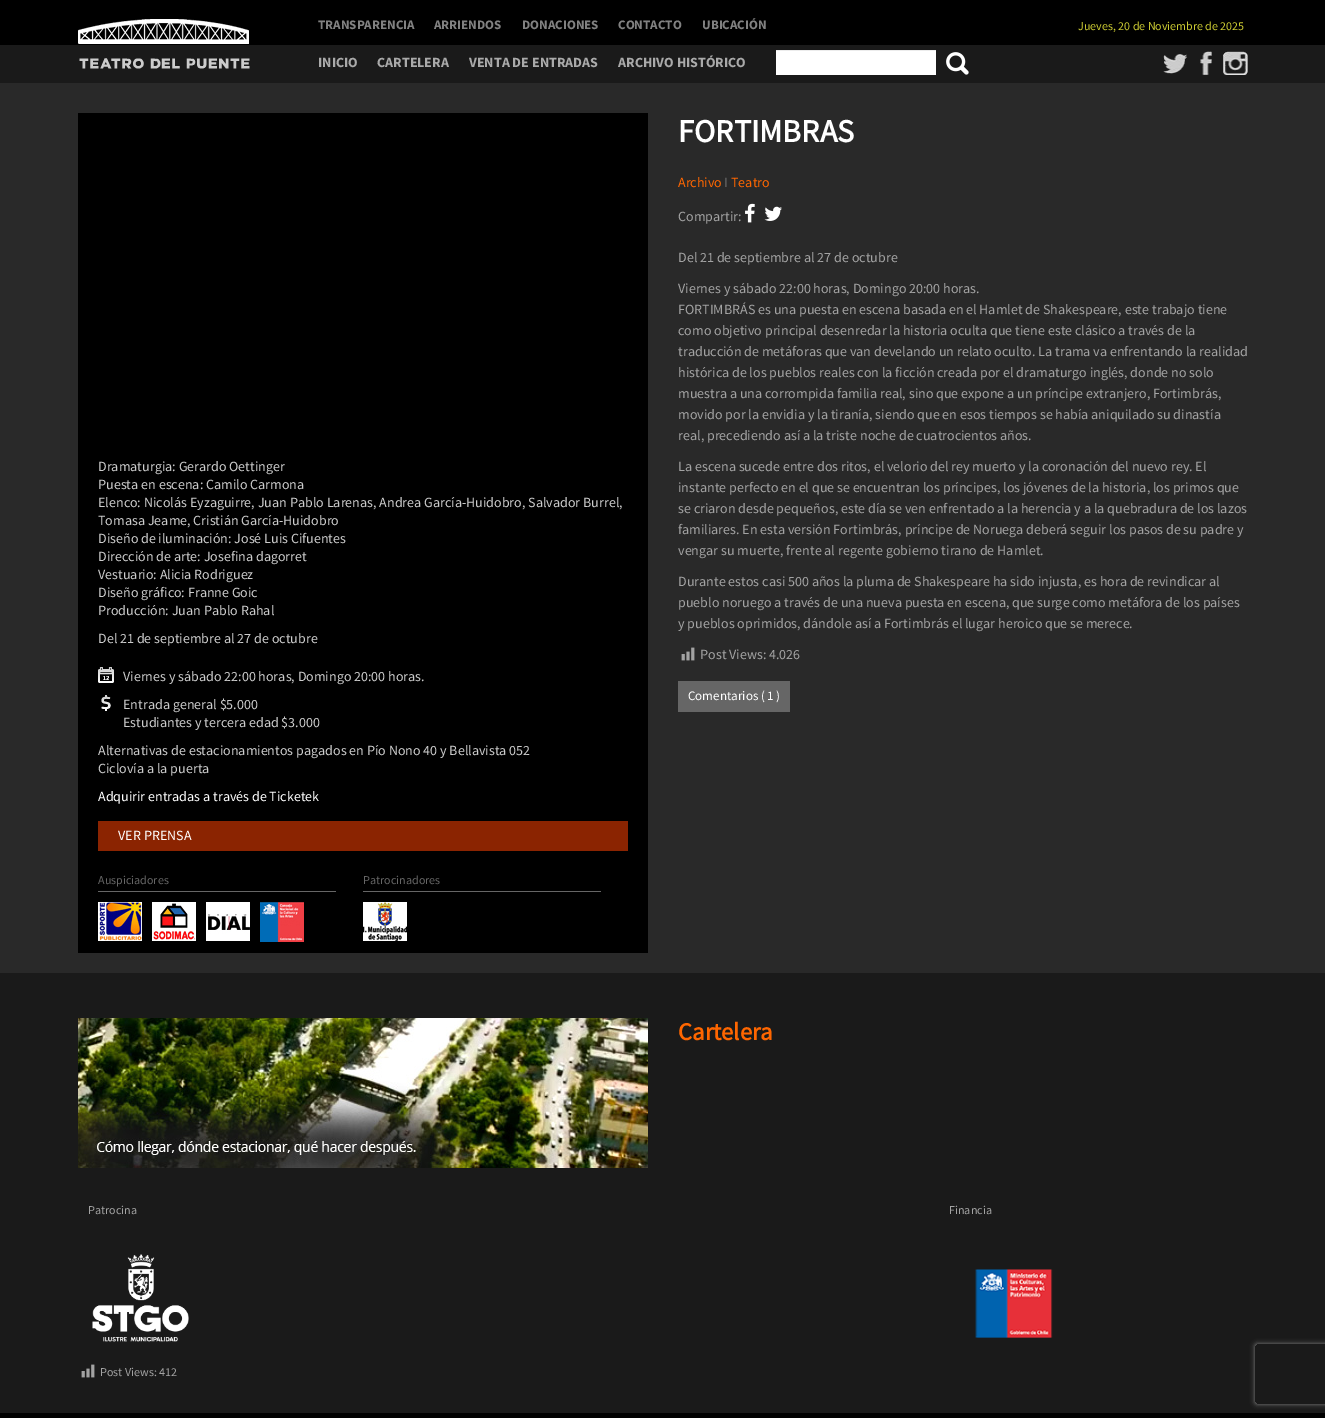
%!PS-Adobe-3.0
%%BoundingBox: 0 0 1325 1418
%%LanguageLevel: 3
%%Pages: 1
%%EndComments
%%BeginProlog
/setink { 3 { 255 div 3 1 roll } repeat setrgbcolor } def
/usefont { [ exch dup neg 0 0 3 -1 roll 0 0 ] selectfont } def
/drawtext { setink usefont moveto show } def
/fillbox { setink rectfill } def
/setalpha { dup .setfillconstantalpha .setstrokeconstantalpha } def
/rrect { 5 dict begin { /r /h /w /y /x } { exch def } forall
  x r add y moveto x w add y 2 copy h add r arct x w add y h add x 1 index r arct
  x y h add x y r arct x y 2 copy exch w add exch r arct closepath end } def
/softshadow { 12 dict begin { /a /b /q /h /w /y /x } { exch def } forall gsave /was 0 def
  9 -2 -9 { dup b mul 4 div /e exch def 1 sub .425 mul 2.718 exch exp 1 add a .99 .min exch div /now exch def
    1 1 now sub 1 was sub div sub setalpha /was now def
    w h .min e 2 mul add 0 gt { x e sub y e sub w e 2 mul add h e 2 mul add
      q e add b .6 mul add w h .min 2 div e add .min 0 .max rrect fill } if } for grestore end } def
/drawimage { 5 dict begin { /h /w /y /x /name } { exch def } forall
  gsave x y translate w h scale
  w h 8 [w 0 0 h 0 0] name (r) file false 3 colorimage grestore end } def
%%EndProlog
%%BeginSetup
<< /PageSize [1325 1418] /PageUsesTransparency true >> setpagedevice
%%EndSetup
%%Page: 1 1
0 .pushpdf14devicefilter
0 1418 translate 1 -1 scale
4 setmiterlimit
0 0 1325 1418 41 41 41 fillbox
0 0 1325 45 0 0 0 fillbox
(assets/img1.rgb) 78 19 171 25 drawimage
(TRANSPARENCIA) 318 29 /SourceSansPro-Bold 13 129 129 129 drawtext
(ARRIENDOS) 434 29 /SourceSansPro-Bold 13 129 129 129 drawtext
(DONACIONES) 522 29 /SourceSansPro-Bold 13 129 129 129 drawtext
(CONTACTO) 618 29 /SourceSansPro-Bold 13 129 129 129 drawtext
(UBICACIÓN) 702 29 /SourceSansPro-Bold 13 129 129 129 drawtext
(Jueves, 20 de Noviembre de 2025) 1078 30 /SourceSansPro-Regular 12 204 203 50 drawtext
0 45 1325 38 26 26 26 fillbox
(assets/img2.rgb) 79 58 171 11 drawimage
(INICIO) 318 67 /SourceSansPro-Bold 14 170 170 170 drawtext
(CARTELERA) 377 67 /SourceSansPro-Bold 14 170 170 170 drawtext
(VENTA DE ENTRADAS) 469 67 /SourceSansPro-Bold 14 170 170 170 drawtext
(ARCHIVO HISTÓRICO) 618 67 /SourceSansPro-Bold 14 170 170 170 drawtext
776 51 160 24 255 255 255 fillbox
776 50 160 1 236 236 236 fillbox
(assets/img3.rgb) 946 52 23 23 drawimage
(assets/img4.rgb) 1163 54 24 20 drawimage
(assets/img5.rgb) 1200 51 12 24 drawimage
(assets/img6.rgb) 1223 51 25 24 drawimage
78 113 570 840 0 0 0 fillbox
(Dramaturgia: Gerardo Oettinger) 98 471 /SourceSansPro-Regular 14 204 204 204 drawtext
(Puesta en escena: Camilo Carmona) 98 489 /SourceSansPro-Regular 14 204 204 204 drawtext
(Elenco: Nicolás Eyzaguirre, Juan Pablo Larenas, Andrea García-Huidobro, Salvador Burrel,) 98 507 /SourceSansPro-Regular 14 204 204 204 drawtext
(Tomasa Jeame, Cristián García-Huidobro) 98 525 /SourceSansPro-Regular 14 204 204 204 drawtext
(Diseño de iluminación: José Luis Cifuentes) 98 543 /SourceSansPro-Regular 14 204 204 204 drawtext
(Dirección de arte: Josefina dagorret) 98 561 /SourceSansPro-Regular 14 204 204 204 drawtext
(Vestuario: Alicia Rodriguez) 98 579 /SourceSansPro-Regular 14 204 204 204 drawtext
(Diseño gráfico: Franne Goic) 98 597 /SourceSansPro-Regular 14 204 204 204 drawtext
(Producción: Juan Pablo Rahal) 98 615 /SourceSansPro-Regular 14 204 204 204 drawtext
(Del 21 de septiembre al 27 de octubre) 98 643 /SourceSansPro-Regular 14 204 204 204 drawtext
(assets/img7.rgb) 98 667 16 16 drawimage
(Viernes y sábado 22:00 horas, Domingo 20:00 horas.) 123 681 /SourceSansPro-Regular 14 204 204 204 drawtext
(assets/img8.rgb) 101 695 10 16 drawimage
(Entrada general $5.000) 123 709 /SourceSansPro-Regular 14 204 204 204 drawtext
(Estudiantes y tercera edad $3.000) 123 727 /SourceSansPro-Regular 14 204 204 204 drawtext
(Alternativas de estacionamientos pagados en Pío Nono 40 y Bellavista 052) 98 755 /SourceSansPro-Regular 14 204 204 204 drawtext
(Ciclovía a la puerta) 98 773 /SourceSansPro-Regular 14 204 204 204 drawtext
(Adquirir entradas a través de Ticketek) 98 801 /SourceSansPro-Regular 14 255 255 255 drawtext
98 821 530 30 139 36 1 fillbox
(VER PRENSA) 118 840 /SourceSansPro-Regular 14 255 255 255 drawtext
98 891 238 1 102 102 102 fillbox
(Auspiciadores) 98 884 /SourceSansPro-Regular 12 102 102 102 drawtext
(assets/img9.rgb) 98 902 44 39 drawimage
(assets/img10.rgb) 152 902 44 39 drawimage
(assets/img11.rgb) 206 902 44 39 drawimage
(assets/img12.rgb) 260 902 44 40 drawimage
363 891 238 1 102 102 102 fillbox
(Patrocinadores) 363 884 /SourceSansPro-Regular 12 102 102 102 drawtext
(assets/img13.rgb) 363 902 44 39 drawimage
(FORTIMBRAS) 678 142 /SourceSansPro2-Bold 32 255 255 255 drawtext
(Archivo) 678 187 /SourceSansPro-Regular 14 255 102 0 drawtext
(I) 724 187 /SourceSansPro-Regular 14 102 102 102 drawtext
(Teatro) 731 187 /SourceSansPro-Regular 14 255 102 0 drawtext
(Compartir:) 678 221 /SourceSansPro-Regular 14 163 163 163 drawtext
(assets/img14.rgb) 745 203 10 20 drawimage
(assets/img15.rgb) 764 206 18 15 drawimage
(Del 21 de septiembre al 27 de octubre) 678 262 /SourceSansPro-Regular 14 163 163 163 drawtext
(Viernes y sábado 22:00 horas, Domingo 20:00 horas.) 678 293 /SourceSansPro-Regular 14 163 163 163 drawtext
(FORTIMBRÁS es una puesta en escena basada en el Hamlet de Shakespeare, este trabajo tiene) 678 314 /SourceSansPro-Regular 14 163 163 163 drawtext
(como objetivo principal desenredar la historia oculta que tiene este clásico a través de la) 678 335 /SourceSansPro-Regular 14 163 163 163 drawtext
(traducción de metáforas que van develando un relato oculto. La trama va enfrentando la realidad) 678 356 /SourceSansPro-Regular 14 163 163 163 drawtext
(histórica de los pueblos reales con la ficción creada por el dramaturgo inglés, donde no solo) 678 377 /SourceSansPro-Regular 14 163 163 163 drawtext
(muestra a una corrompida familia real, sino que expone a un príncipe extranjero, Fortimbrás,) 678 398 /SourceSansPro-Regular 14 163 163 163 drawtext
(movido por la envidia y la tiranía, siendo que en esos tiempos se había aniquilado su dinastía) 678 419 /SourceSansPro-Regular 14 163 163 163 drawtext
(real, precediendo así a la triste noche de cuatrocientos años.) 678 440 /SourceSansPro-Regular 14 163 163 163 drawtext
(La escena sucede entre dos ritos, el velorio del rey muerto y la coronación del nuevo rey. El) 678 471 /SourceSansPro-Regular 14 163 163 163 drawtext
(instante perfecto en el que se encuentran los príncipes, los jóvenes de la historia, los primos que) 678 492 /SourceSansPro-Regular 14 163 163 163 drawtext
(se criaron desde pequeños, este día se ven enfrentado a la herencia y a la quebradura de los lazos) 678 513 /SourceSansPro-Regular 14 163 163 163 drawtext
(familiares. En esta versión Fortimbrás, príncipe de Noruega deberá seguir los pasos de su padre y) 678 534 /SourceSansPro-Regular 14 163 163 163 drawtext
(vengar su muerte, frente al regente gobierno tirano de Hamlet.) 678 555 /SourceSansPro-Regular 14 163 163 163 drawtext
(Durante estos casi 500 años la pluma de Shakespeare ha sido injusta, es hora de revindicar al) 678 586 /SourceSansPro-Regular 14 163 163 163 drawtext
(pueblo noruego a través de una nueva puesta en escena, que surge como metáfora de los países) 678 607 /SourceSansPro-Regular 14 163 163 163 drawtext
(y pueblos oprimidos, dándole así a Fortimbrás el lugar heroico que se merece.) 678 628 /SourceSansPro-Regular 14 163 163 163 drawtext
(assets/img16.rgb) 681 647 14 14 drawimage
(Post Views: 4.026) 700 659 /SourceSansPro-Regular 14 163 163 163 drawtext
678 681 112 31 102 102 102 fillbox
(Comentarios \( 1 \)) 688 700 /SourceSansPro-Regular 13 255 255 255 drawtext
0 973 1325 440 26 26 26 fillbox
(assets/img17.rgb) 78 1018 570 150 drawimage
(Cartelera) 678 1040 /SourceSansPro2-Bold 24.5 255 102 0 drawtext
(Patrocina) 88 1214 /SourceSansPro-Regular 12 163 163 163 drawtext
(Financia) 949 1214 /SourceSansPro-Regular 12 163 163 163 drawtext
(assets/img18.rgb) 92 1254 97 88 drawimage
(assets/img19.rgb) 975 1269 78 69 drawimage
(assets/img20.rgb) 81 1364 14 14 drawimage
(Post Views: 412) 100 1376 /SourceSansPro-Regular 12 163 163 163 drawtext
gsave
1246 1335 moveto 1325 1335 lineto 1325 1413 lineto 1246 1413 lineto closepath 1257 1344 moveto 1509 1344 lineto 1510 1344 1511 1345 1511 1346 curveto 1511 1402 lineto 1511 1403 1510 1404 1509 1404 curveto 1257 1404 lineto 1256 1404 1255 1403 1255 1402 curveto 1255 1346 lineto 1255 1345 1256 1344 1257 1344 curveto closepath eoclip newpath
128 128 128 setink
1255 1344 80 60 2 2.5 1 softshadow
grestore
0 1413 1325 5 0 0 0 fillbox
.poppdf14devicefilter showpage
%%EOF
